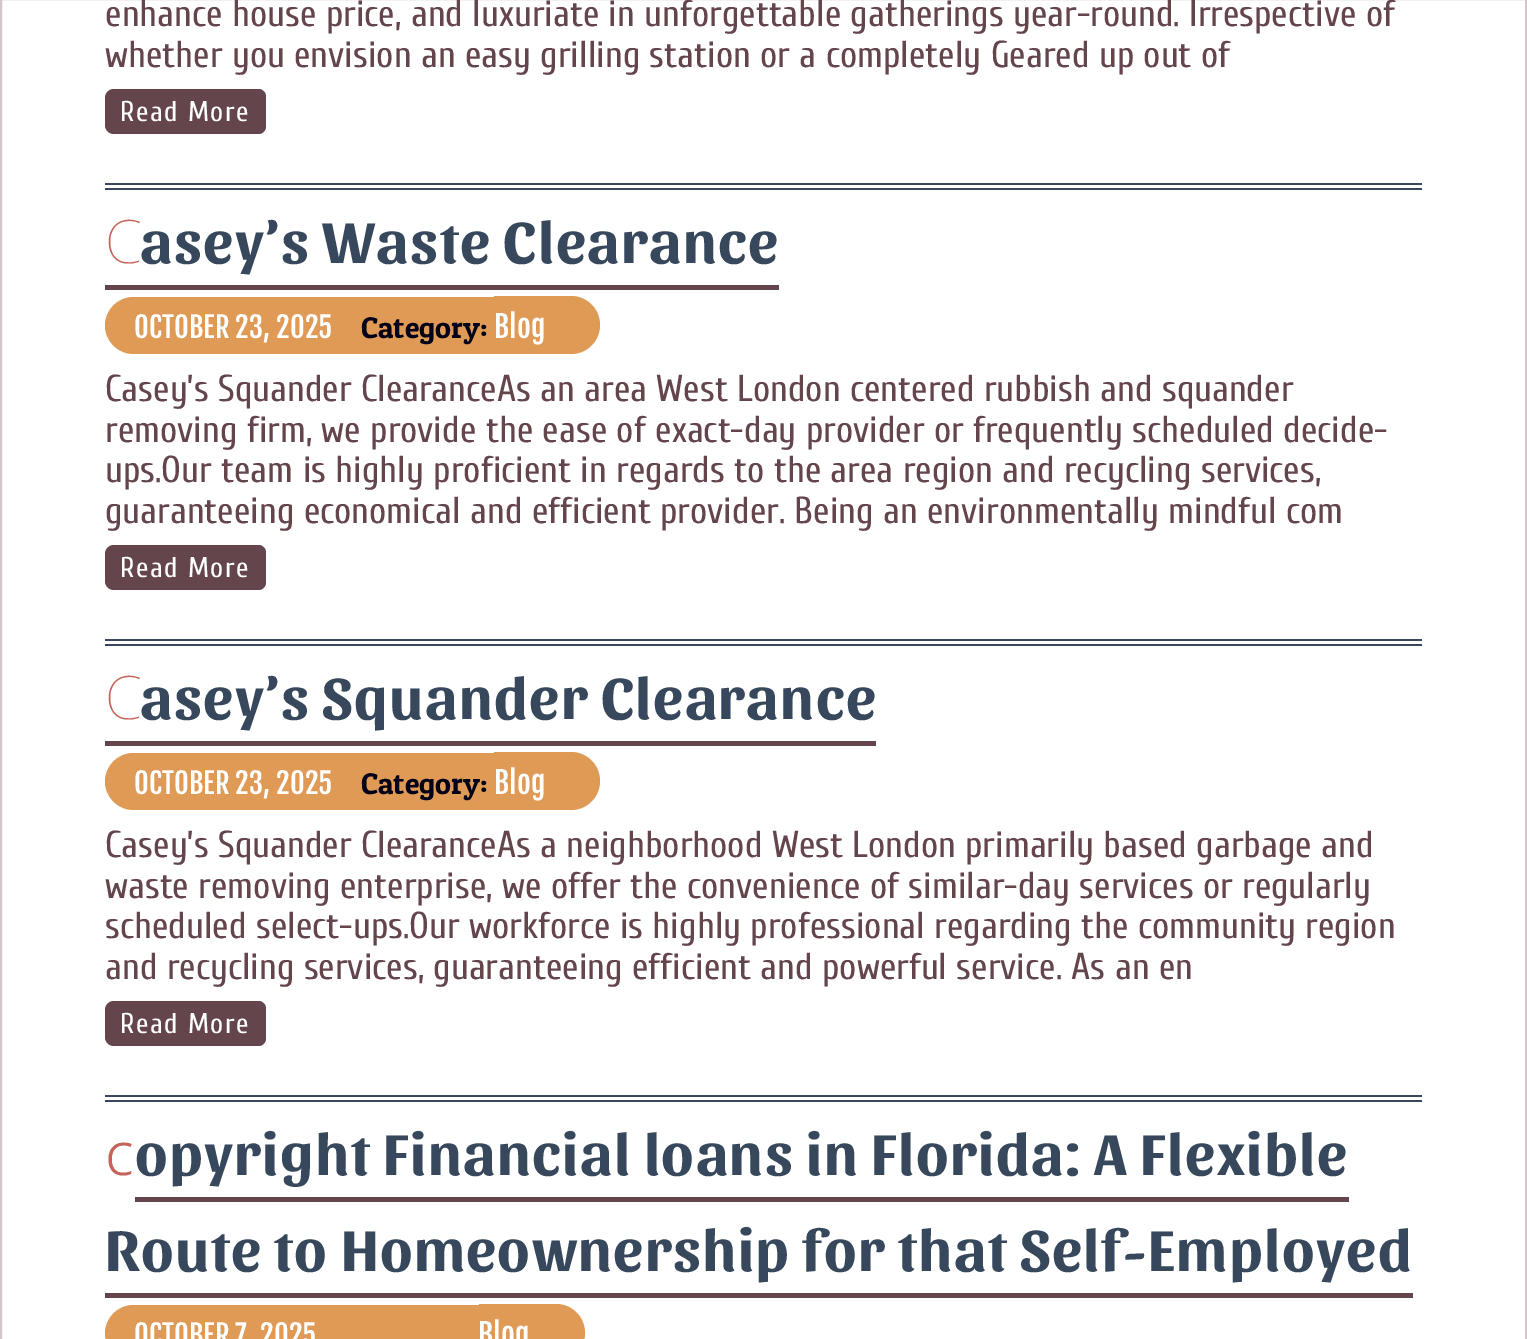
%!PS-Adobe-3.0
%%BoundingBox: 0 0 1527 1339
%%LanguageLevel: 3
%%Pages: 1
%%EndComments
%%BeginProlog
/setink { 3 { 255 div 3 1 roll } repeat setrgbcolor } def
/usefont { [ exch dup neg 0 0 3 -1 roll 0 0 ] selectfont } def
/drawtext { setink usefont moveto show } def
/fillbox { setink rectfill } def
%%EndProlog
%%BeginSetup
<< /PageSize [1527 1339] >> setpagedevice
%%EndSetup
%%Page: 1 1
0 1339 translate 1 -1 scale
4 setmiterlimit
0 0 1527 1339 255 255 255 fillbox
209 199 201 setink
2 setlinewidth
1 -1 1525 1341 rectstroke
(enhance house price, and luxuriate in unforgettable gatherings year-round. Irrespective of) 105 26 /Cuprum-Regular 37.5 101 69 76 drawtext
(whether you envision an easy grilling station or a completely Geared up out of) 105 67 /Cuprum-Regular 37.5 101 69 76 drawtext
114 89 moveto 251 89 lineto 251 134 lineto 114 134 lineto 109 134 105 130 105 125 curveto 105 98 lineto 105 93 109 89 114 89 curveto closepath fill
/Cuprum-Regular 28.5 usefont
255 255 255 setink
120 121 moveto 1.5 0 (Read More) ashow
101 69 76 setink
251 89 moveto 258.5 89 lineto 262.5 89 266 92.5 266 96.5 curveto 266 126.5 lineto 266 130.5 262.5 134 258.5 134 curveto 251 134 lineto closepath fill
105 183 1317 2 55 72 92 fillbox
105 188 1317 2 55 72 92 fillbox
/NotoSans-Thin 60 usefont
197 100 91 setink
105 263 moveto 1.5 0 (C) ashow
/Sansita-Bold 60 usefont
55 72 92 setink
140 263 moveto 1.5 0 (asey’s Waste Clearance) ashow
105 285 674 5 101 69 76 fillbox
223 154 85 setink
133.5 297 moveto 333 297 lineto 333 354 lineto 133.5 354 lineto 118 354 105 341 105 325.5 curveto 105 310 118 297 133.5 297 curveto closepath fill
(OCTOBER 23, 2025) 134 338 /FjallaOne-Regular 28.5 255 255 255 drawtext
333 297 161 57 223 154 85 fillbox
(Category:) 361 338 /PatuaOne-Regular 30 1 1 24 drawtext
223 154 85 setink
494 296 moveto 571 296 lineto 587 296 600 309 600 325 curveto 600 341 587 354 571 354 curveto 494 354 lineto closepath fill
(Blog) 494 338 /FjallaOne-Regular 30 255 255 255 drawtext
(Casey’s Squander ClearanceAs an area West London centered rubbish and squander) 105 401 /Cuprum-Regular 37.5 101 69 76 drawtext
(removing firm, we provide the ease of exact-day provider or frequently scheduled decide-) 105 442 /Cuprum-Regular 37.5 101 69 76 drawtext
(ups.Our team is highly proficient in regards to the area region and recycling services,) 105 482 /Cuprum-Regular 37.5 101 69 76 drawtext
(guaranteeing economical and efficient provider. Being an environmentally mindful com) 105 523 /Cuprum-Regular 37.5 101 69 76 drawtext
114 545 moveto 251 545 lineto 251 590 lineto 114 590 lineto 109 590 105 586 105 581 curveto 105 554 lineto 105 549 109 545 114 545 curveto closepath fill
/Cuprum-Regular 28.5 usefont
255 255 255 setink
120 577 moveto 1.5 0 (Read More) ashow
101 69 76 setink
251 545 moveto 258.5 545 lineto 262.5 545 266 548.5 266 552.5 curveto 266 582.5 lineto 266 586.5 262.5 590 258.5 590 curveto 251 590 lineto closepath fill
105 639 1317 2 55 72 92 fillbox
105 644 1317 2 55 72 92 fillbox
/NotoSans-Thin 60 usefont
197 100 91 setink
105 719 moveto 1.5 0 (C) ashow
/Sansita-Bold 60 usefont
55 72 92 setink
140 719 moveto 1.5 0 (asey’s Squander Clearance) ashow
105 741 771 5 101 69 76 fillbox
223 154 85 setink
133.5 753 moveto 333 753 lineto 333 810 lineto 133.5 810 lineto 118 810 105 797 105 781.5 curveto 105 766 118 753 133.5 753 curveto closepath fill
(OCTOBER 23, 2025) 134 794 /FjallaOne-Regular 28.5 255 255 255 drawtext
333 753 161 57 223 154 85 fillbox
(Category:) 361 794 /PatuaOne-Regular 30 1 1 24 drawtext
223 154 85 setink
494 752 moveto 571 752 lineto 587 752 600 765 600 781 curveto 600 797 587 810 571 810 curveto 494 810 lineto closepath fill
(Blog) 494 794 /FjallaOne-Regular 30 255 255 255 drawtext
(Casey’s Squander ClearanceAs a neighborhood West London primarily based garbage and) 105 857 /Cuprum-Regular 37.5 101 69 76 drawtext
(waste removing enterprise, we offer the convenience of similar-day services or regularly) 105 898 /Cuprum-Regular 37.5 101 69 76 drawtext
(scheduled select-ups.Our workforce is highly professional regarding the community region) 105 938 /Cuprum-Regular 37.5 101 69 76 drawtext
(and recycling services, guaranteeing efficient and powerful service. As an en) 105 979 /Cuprum-Regular 37.5 101 69 76 drawtext
114 1001 moveto 251 1001 lineto 251 1046 lineto 114 1046 lineto 109 1046 105 1042 105 1037 curveto 105 1010 lineto 105 1005 109 1001 114 1001 curveto closepath fill
/Cuprum-Regular 28.5 usefont
255 255 255 setink
120 1033 moveto 1.5 0 (Read More) ashow
101 69 76 setink
251 1001 moveto 258.5 1001 lineto 262.5 1001 266 1004.5 266 1008.5 curveto 266 1038.5 lineto 266 1042.5 262.5 1046 258.5 1046 curveto 251 1046 lineto closepath fill
105 1095 1317 2 55 72 92 fillbox
105 1100 1317 2 55 72 92 fillbox
/NotoSans-Light 60 usefont
197 100 91 setink
105 1175 moveto 1.5 0 (c) ashow
/Sansita-Bold 60 usefont
55 72 92 setink
135 1175 moveto 1.5 0 (opyright Financial loans in Florida: A Flexible) ashow
135 1197 1214 5 101 69 76 fillbox
55 72 92 setink
105 1271 moveto 1.5 0 (Route to Homeownership for that Self-Employed) ashow
105 1293 1308 5 101 69 76 fillbox
223 154 85 setink
133.5 1305 moveto 318 1305 lineto 318 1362 lineto 133.5 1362 lineto 118 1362 105 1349 105 1333.5 curveto 105 1318 118 1305 133.5 1305 curveto closepath fill
(OCTOBER 7, 2025) 134 1346 /FjallaOne-Regular 28.5 255 255 255 drawtext
223 154 85 setink
479 1304 moveto 556 1304 lineto 572 1304 585 1317 585 1333 curveto 585 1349 572 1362 556 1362 curveto 479 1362 lineto closepath fill
(Blog) 478 1346 /FjallaOne-Regular 30 255 255 255 drawtext
318 1305 161 34 223 154 85 fillbox
showpage
%%EOF
